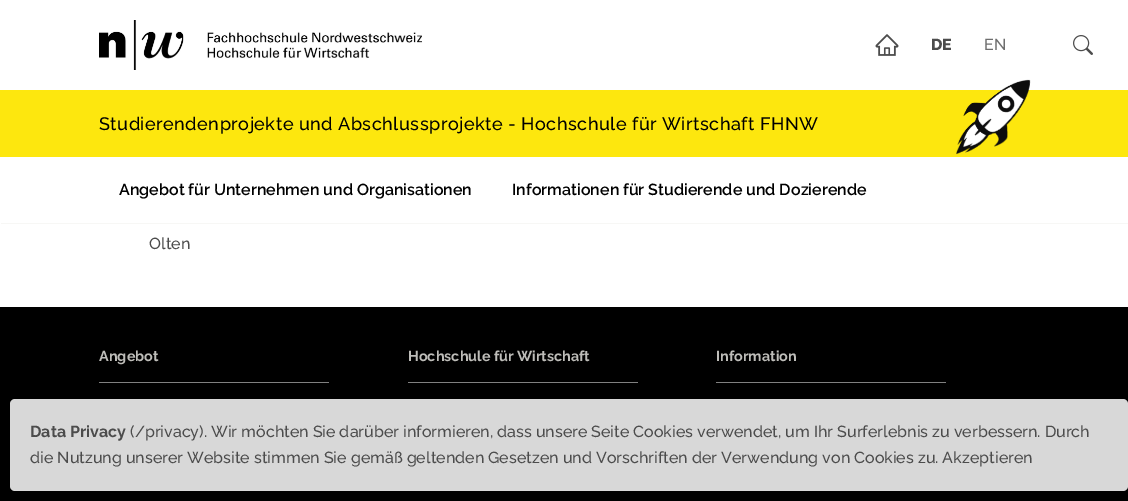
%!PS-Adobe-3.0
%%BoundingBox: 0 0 1128 501
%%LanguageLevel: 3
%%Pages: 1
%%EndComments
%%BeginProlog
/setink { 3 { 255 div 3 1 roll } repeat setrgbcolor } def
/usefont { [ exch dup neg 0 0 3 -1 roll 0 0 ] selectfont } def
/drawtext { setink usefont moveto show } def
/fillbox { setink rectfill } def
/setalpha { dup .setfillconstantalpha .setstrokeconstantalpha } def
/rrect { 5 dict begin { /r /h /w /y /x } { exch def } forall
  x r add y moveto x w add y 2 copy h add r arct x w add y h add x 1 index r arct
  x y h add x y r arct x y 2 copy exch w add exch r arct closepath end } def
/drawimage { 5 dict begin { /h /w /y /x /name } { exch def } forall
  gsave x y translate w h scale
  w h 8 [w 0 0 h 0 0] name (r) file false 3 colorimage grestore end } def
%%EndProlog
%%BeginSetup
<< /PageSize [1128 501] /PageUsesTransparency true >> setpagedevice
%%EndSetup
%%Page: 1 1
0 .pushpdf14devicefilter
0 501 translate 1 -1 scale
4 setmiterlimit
0 0 1128 501 255 255 255 fillbox
(assets/img1.rgb) 875 34 24 22 drawimage
(DE) 931 50 /Raleway-ExtraBold 16 76 76 76 drawtext
(EN) 984 50 /Raleway-Medium 16 110 110 110 drawtext
(assets/img2.rgb) 1073 35 20 20 drawimage
247 247 245 setink
1 223 moveto 1 224 lineto 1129 224 lineto 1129 1 lineto 1128 1 lineto 1128 223 lineto closepath fill
(assets/img3.rgb) 99 20 323 50 drawimage
0 90 1128 67 253 231 14 fillbox
/Raleway-Medium 18 usefont
0 0 0 setink
99 130 moveto 0.5 0 (Studierendenprojekte und Abschlussprojekte - Hochschule für Wirtschaft FHNW) ashow
(Angebot für Unternehmen und Organisationen) 119 195 /Raleway-SemiBold 16 0 0 0 drawtext
(Informationen für Studierende und Dozierende) 512 195 /Raleway-SemiBold 16 0 0 0 drawtext
(assets/img4.rgb) 956 79 75 76 drawimage
(Olten) 149 249 /Raleway-Medium 16 76 76 76 drawtext
0 307 1128 194 0 0 0 fillbox
99 382 230 1 128 128 128 fillbox
(Angebot) 99 361 /Raleway-Bold 14.4 190 189 185 drawtext
408 382 230 1 128 128 128 fillbox
(Hochschule für Wirtschaft) 408 361 /Raleway-Bold 14.4 190 189 185 drawtext
716 382 230 1 128 128 128 fillbox
(Information) 716 361 /Raleway-Bold 14.4 190 189 185 drawtext
0.9 setalpha
239 239 239 setink
10 399 1118 92 5 rrect fill
1 setalpha
(Data Privacy) 30 437 /Raleway-Bold 16 76 76 76 drawtext
(\(/privacy\). Wir möchten Sie darüber informieren, dass unsere Seite Cookies verwendet, um Ihr Surferlebnis zu verbessern. Durch) 130 437 /Raleway-Medium 16 76 76 76 drawtext
(die Nutzung unserer Website stimmen Sie gemäß geltenden Gesetzen und Vorschriften der Verwendung von Cookies zu. Akzeptieren) 30 463 /Raleway-Medium 16 76 76 76 drawtext
.poppdf14devicefilter showpage
%%EOF
